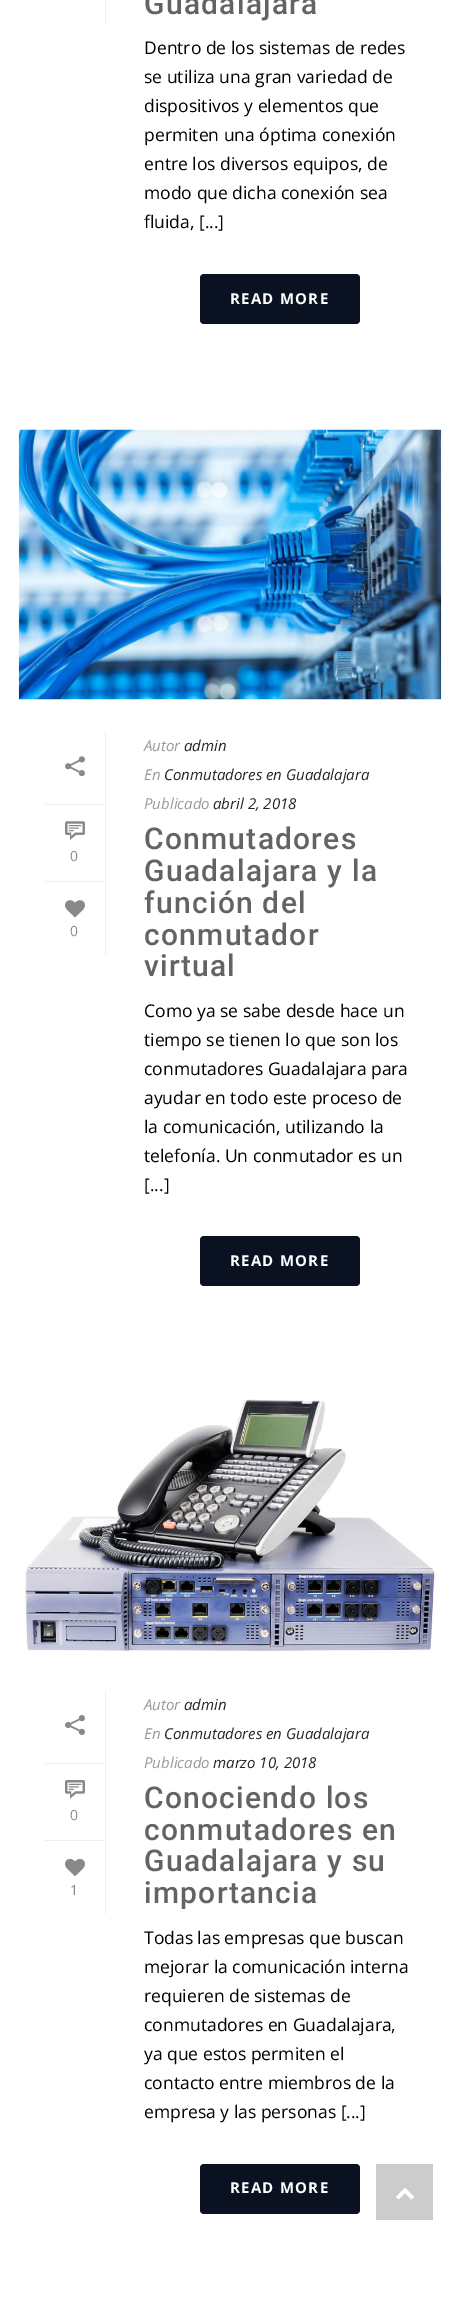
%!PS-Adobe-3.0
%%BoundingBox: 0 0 459 2310
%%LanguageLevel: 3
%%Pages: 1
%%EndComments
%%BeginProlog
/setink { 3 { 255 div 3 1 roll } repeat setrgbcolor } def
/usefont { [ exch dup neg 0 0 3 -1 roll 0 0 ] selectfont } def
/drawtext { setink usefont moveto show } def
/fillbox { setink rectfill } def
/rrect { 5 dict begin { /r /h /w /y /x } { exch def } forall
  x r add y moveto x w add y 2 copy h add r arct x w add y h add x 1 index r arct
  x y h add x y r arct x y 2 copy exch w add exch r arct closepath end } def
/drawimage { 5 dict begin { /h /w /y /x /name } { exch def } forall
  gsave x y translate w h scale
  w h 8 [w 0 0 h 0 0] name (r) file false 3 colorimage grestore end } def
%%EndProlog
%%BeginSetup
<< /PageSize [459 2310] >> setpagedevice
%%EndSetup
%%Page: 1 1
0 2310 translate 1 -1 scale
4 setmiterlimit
0 0 459 2310 255 255 255 fillbox
105 0 1 24 239 239 239 fillbox
/Roboto-Medium 30 usefont
99 99 99 setink
144 14 moveto 1.25 0 (Guadalajara) ashow
(Dentro de los sistemas de redes) 144 54 /OpenSans-Regular 17.5 0 0 0 drawtext
(se utiliza una gran variedad de) 144 83 /OpenSans-Regular 17.5 0 0 0 drawtext
(dispositivos y elementos que) 144 112 /OpenSans-Regular 17.5 0 0 0 drawtext
(permiten una óptima conexión) 144 141 /OpenSans-Regular 17.5 0 0 0 drawtext
(entre los diversos equipos, de) 144 170 /OpenSans-Regular 17.5 0 0 0 drawtext
(modo que dicha conexión sea) 144 199 /OpenSans-Regular 17.5 0 0 0 drawtext
(fluida, [...]) 144 228 /OpenSans-Regular 17.5 0 0 0 drawtext
10 18 34 setink
200 274 160 50 4 rrect fill
/OpenSans-Bold 15 usefont
255 255 255 setink
230 304 moveto 1.25 0 (READ MORE) ashow
(assets/img1.rgb) 18 429 424 271 drawimage
105 731 1 224 239 239 239 fillbox
44 804 61 1 239 239 239 fillbox
(assets/img2.rgb) 65 756 20 20 drawimage
44 881 61 1 239 239 239 fillbox
(assets/img3.rgb) 65 821 20 19 drawimage
(0) 70 861 /OpenSans-Regular 14 137 137 137 drawtext
(assets/img4.rgb) 65 900 20 18 drawimage
(0) 70 936 /OpenSans-Regular 14 137 137 137 drawtext
(Autor) 144 751 /OpenSans-Italic 15 153 153 153 drawtext
(admin) 184 751 /OpenSans-Italic 15 37 37 37 drawtext
(En) 144 780 /OpenSans-Italic 15 153 153 153 drawtext
(Conmutadores en Guadalajara) 164 780 /OpenSans-Italic 15 37 37 37 drawtext
(Publicado) 144 809 /OpenSans-Italic 15 153 153 153 drawtext
(abril 2, 2018) 213 809 /OpenSans-Italic 15 37 37 37 drawtext
/Roboto-Medium 30 usefont
99 99 99 setink
144 849 moveto 1.25 0 (Conmutadores) ashow
144 881 moveto 1.25 0 (Guadalajara y la) ashow
144 913 moveto 1.25 0 (función del) ashow
144 945 moveto 1.25 0 (conmutador) ashow
144 976 moveto 1.25 0 (virtual) ashow
(Como ya se sabe desde hace un) 144 1017 /OpenSans-Regular 17.5 0 0 0 drawtext
(tiempo se tienen lo que son los) 144 1046 /OpenSans-Regular 17.5 0 0 0 drawtext
(conmutadores Guadalajara para) 144 1075 /OpenSans-Regular 17.5 0 0 0 drawtext
(ayudar en todo este proceso de) 144 1104 /OpenSans-Regular 17.5 0 0 0 drawtext
(la comunicación, utilizando la) 144 1133 /OpenSans-Regular 17.5 0 0 0 drawtext
(telefonía. Un conmutador es un) 144 1162 /OpenSans-Regular 17.5 0 0 0 drawtext
([...]) 144 1191 /OpenSans-Regular 17.5 0 0 0 drawtext
10 18 34 setink
200 1236 160 50 4 rrect fill
/OpenSans-Bold 15 usefont
255 255 255 setink
230 1266 moveto 1.25 0 (READ MORE) ashow
(assets/img5.rgb) 23 1399 418 255 drawimage
105 1690 1 224 239 239 239 fillbox
44 1763 61 1 239 239 239 fillbox
(assets/img6.rgb) 65 1715 20 20 drawimage
44 1840 61 1 239 239 239 fillbox
(assets/img7.rgb) 65 1780 20 19 drawimage
(0) 70 1820 /OpenSans-Regular 14 137 137 137 drawtext
(assets/img8.rgb) 65 1858 20 18 drawimage
(1) 70 1895 /OpenSans-Regular 14 137 137 137 drawtext
(Autor) 144 1710 /OpenSans-Italic 15 153 153 153 drawtext
(admin) 184 1710 /OpenSans-Italic 15 37 37 37 drawtext
(En) 144 1739 /OpenSans-Italic 15 153 153 153 drawtext
(Conmutadores en Guadalajara) 164 1739 /OpenSans-Italic 15 37 37 37 drawtext
(Publicado) 144 1768 /OpenSans-Italic 15 153 153 153 drawtext
(marzo 10, 2018) 213 1768 /OpenSans-Italic 15 37 37 37 drawtext
/Roboto-Medium 30 usefont
99 99 99 setink
144 1808 moveto 1.25 0 (Conociendo los) ashow
144 1840 moveto 1.25 0 (conmutadores en) ashow
144 1871 moveto 1.25 0 (Guadalajara y su) ashow
144 1903 moveto 1.25 0 (importancia) ashow
(Todas las empresas que buscan) 144 1944 /OpenSans-Regular 17.5 0 0 0 drawtext
(mejorar la comunicación interna) 144 1973 /OpenSans-Regular 17.5 0 0 0 drawtext
(requieren de sistemas de) 144 2002 /OpenSans-Regular 17.5 0 0 0 drawtext
(conmutadores en Guadalajara,) 144 2031 /OpenSans-Regular 17.5 0 0 0 drawtext
(ya que estos permiten el) 144 2060 /OpenSans-Regular 17.5 0 0 0 drawtext
(contacto entre miembros de la) 144 2089 /OpenSans-Regular 17.5 0 0 0 drawtext
(empresa y las personas [...]) 144 2118 /OpenSans-Regular 17.5 0 0 0 drawtext
10 18 34 setink
200 2164 160 50 4 rrect fill
/OpenSans-Bold 15 usefont
255 255 255 setink
230 2193 moveto 1.25 0 (READ MORE) ashow
376 2164 57 56 204 204 204 fillbox
(assets/img9.rgb) 396 2188 18 12 drawimage
showpage
%%EOF
